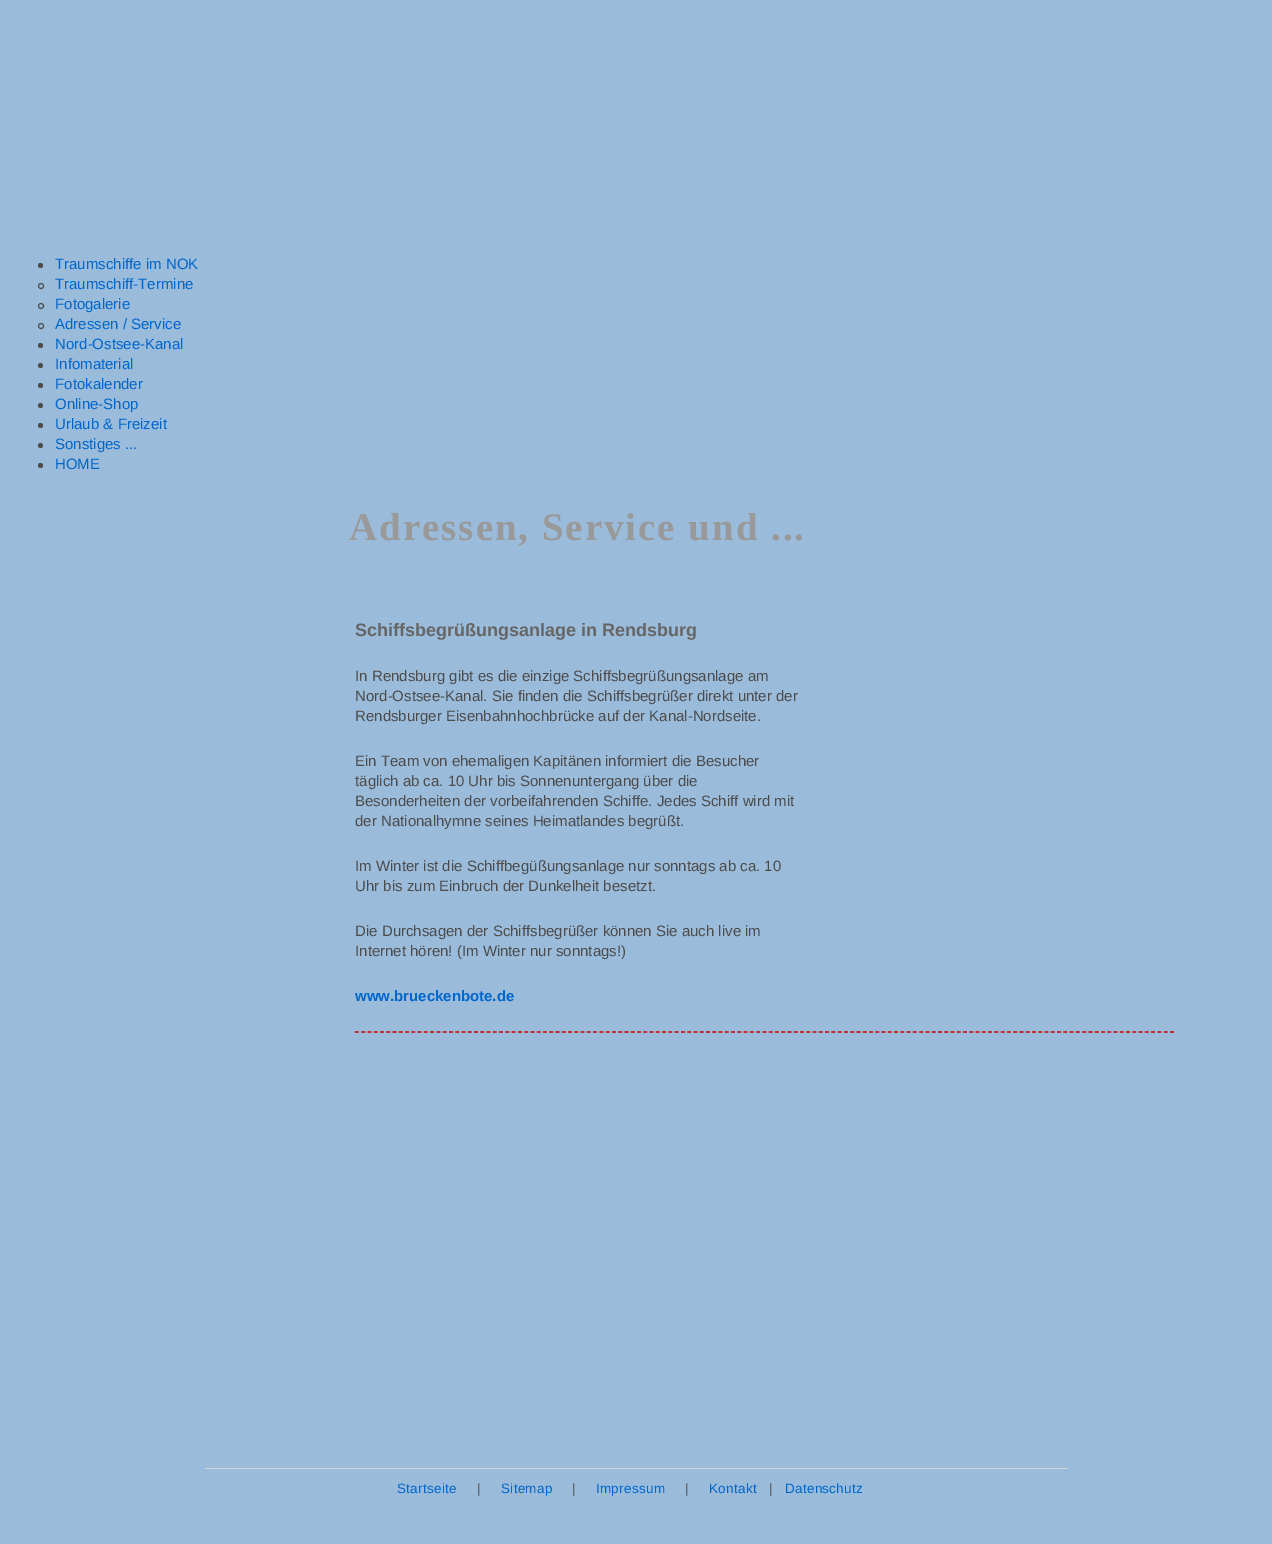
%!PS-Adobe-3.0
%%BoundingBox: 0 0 1272 1544
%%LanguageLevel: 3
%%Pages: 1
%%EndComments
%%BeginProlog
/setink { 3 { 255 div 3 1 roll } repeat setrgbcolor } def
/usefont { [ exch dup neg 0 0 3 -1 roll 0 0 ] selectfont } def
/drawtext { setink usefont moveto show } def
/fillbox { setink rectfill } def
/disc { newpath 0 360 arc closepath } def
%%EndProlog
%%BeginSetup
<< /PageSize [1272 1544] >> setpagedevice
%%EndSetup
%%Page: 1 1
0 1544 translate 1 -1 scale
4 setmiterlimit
0 0 1272 1544 154 187 218 fillbox
76 76 76 setink
40.5 265.5 2.5 disc fill
(Traumschiffe im NOK) 55 269 /LiberationSans-Regular 15 0 102 204 drawtext
76 76 76 setink
41 286 2.5 disc stroke
(Traumschiff-Termine) 55 289 /LiberationSans-Regular 15 0 102 204 drawtext
76 76 76 setink
41 306 2.5 disc stroke
(Fotogalerie) 55 309 /LiberationSans-Regular 15 0 102 204 drawtext
76 76 76 setink
41 326 2.5 disc stroke
(Adressen / Service) 55 329 /LiberationSans-Regular 15 0 102 204 drawtext
76 76 76 setink
40.5 345.5 2.5 disc fill
(Nord-Ostsee-Kanal) 55 349 /LiberationSans-Regular 15 0 102 204 drawtext
76 76 76 setink
40.5 365.5 2.5 disc fill
(Infomaterial) 55 369 /LiberationSans-Regular 15 0 102 204 drawtext
76 76 76 setink
40.5 385.5 2.5 disc fill
(Fotokalender) 55 389 /LiberationSans-Regular 15 0 102 204 drawtext
76 76 76 setink
40.5 405.5 2.5 disc fill
(Online-Shop) 55 409 /LiberationSans-Regular 15 0 102 204 drawtext
76 76 76 setink
40.5 425.5 2.5 disc fill
(Urlaub & Freizeit) 55 429 /LiberationSans-Regular 15 0 102 204 drawtext
76 76 76 setink
40.5 445.5 2.5 disc fill
(Sonstiges ...) 55 449 /LiberationSans-Regular 15 0 102 204 drawtext
76 76 76 setink
40.5 465.5 2.5 disc fill
(HOME) 55 469 /LiberationSans-Regular 15 0 102 204 drawtext
/LiberationSerif-Bold 39 usefont
153 153 153 setink
349 540 moveto 1.95 0 (Adressen, Service und ...) ashow
(Schiffsbegrüßungsanlage in Rendsburg) 355 636 /LiberationSans-Bold 18 102 102 102 drawtext
(In Rendsburg gibt es die einzige Schiffsbegrüßungsanlage am) 355 681 /LiberationSans-Regular 15 76 76 76 drawtext
(Nord-Ostsee-Kanal. Sie finden die Schiffsbegrüßer direkt unter der) 355 701 /LiberationSans-Regular 15 76 76 76 drawtext
(Rendsburger Eisenbahnhochbrücke auf der Kanal-Nordseite.) 355 721 /LiberationSans-Regular 15 76 76 76 drawtext
(Ein Team von ehemaligen Kapitänen informiert die Besucher) 355 766 /LiberationSans-Regular 15 76 76 76 drawtext
(täglich ab ca. 10 Uhr bis Sonnenuntergang über die) 355 786 /LiberationSans-Regular 15 76 76 76 drawtext
(Besonderheiten der vorbeifahrenden Schiffe. Jedes Schiff wird mit) 355 806 /LiberationSans-Regular 15 76 76 76 drawtext
(der Nationalhymne seines Heimatlandes begrüßt.) 355 826 /LiberationSans-Regular 15 76 76 76 drawtext
(Im Winter ist die Schiffbegüßungsanlage nur sonntags ab ca. 10) 355 871 /LiberationSans-Regular 15 76 76 76 drawtext
(Uhr bis zum Einbruch der Dunkelheit besetzt.) 355 891 /LiberationSans-Regular 15 76 76 76 drawtext
(Die Durchsagen der Schiffsbegrüßer können Sie auch live im) 355 936 /LiberationSans-Regular 15 76 76 76 drawtext
(Internet hören! \(Im Winter nur sonntags!\)) 355 956 /LiberationSans-Regular 15 76 76 76 drawtext
(www.brueckenbote.de) 355 1001 /LiberationSans-Bold 15 0 102 204 drawtext
204 0 0 setink
1.2 setlinewidth
[3.75 2.52] 0 setdash
355 1032 moveto 1174 1032 lineto stroke
205 1468 863 1 212 212 212 fillbox
/LiberationSans-Regular 13.5 usefont
0 102 204 setink
397 1493 moveto 0.25 0 (Startseite) ashow
76 76 76 setink
477 1493 moveto 0.25 0 (|) ashow
0 102 204 setink
501 1493 moveto 0.25 0 (Sitemap) ashow
76 76 76 setink
572 1493 moveto 0.25 0 (|) ashow
0 102 204 setink
596 1493 moveto 0.25 0 (Impressum) ashow
76 76 76 setink
685 1493 moveto 0.25 0 (|) ashow
0 102 204 setink
709 1493 moveto 0.25 0 (Kontakt) ashow
76 76 76 setink
769 1493 moveto 0.25 0 (|) ashow
0 102 204 setink
785 1493 moveto 0.25 0 (Datenschutz) ashow
showpage
%%EOF
